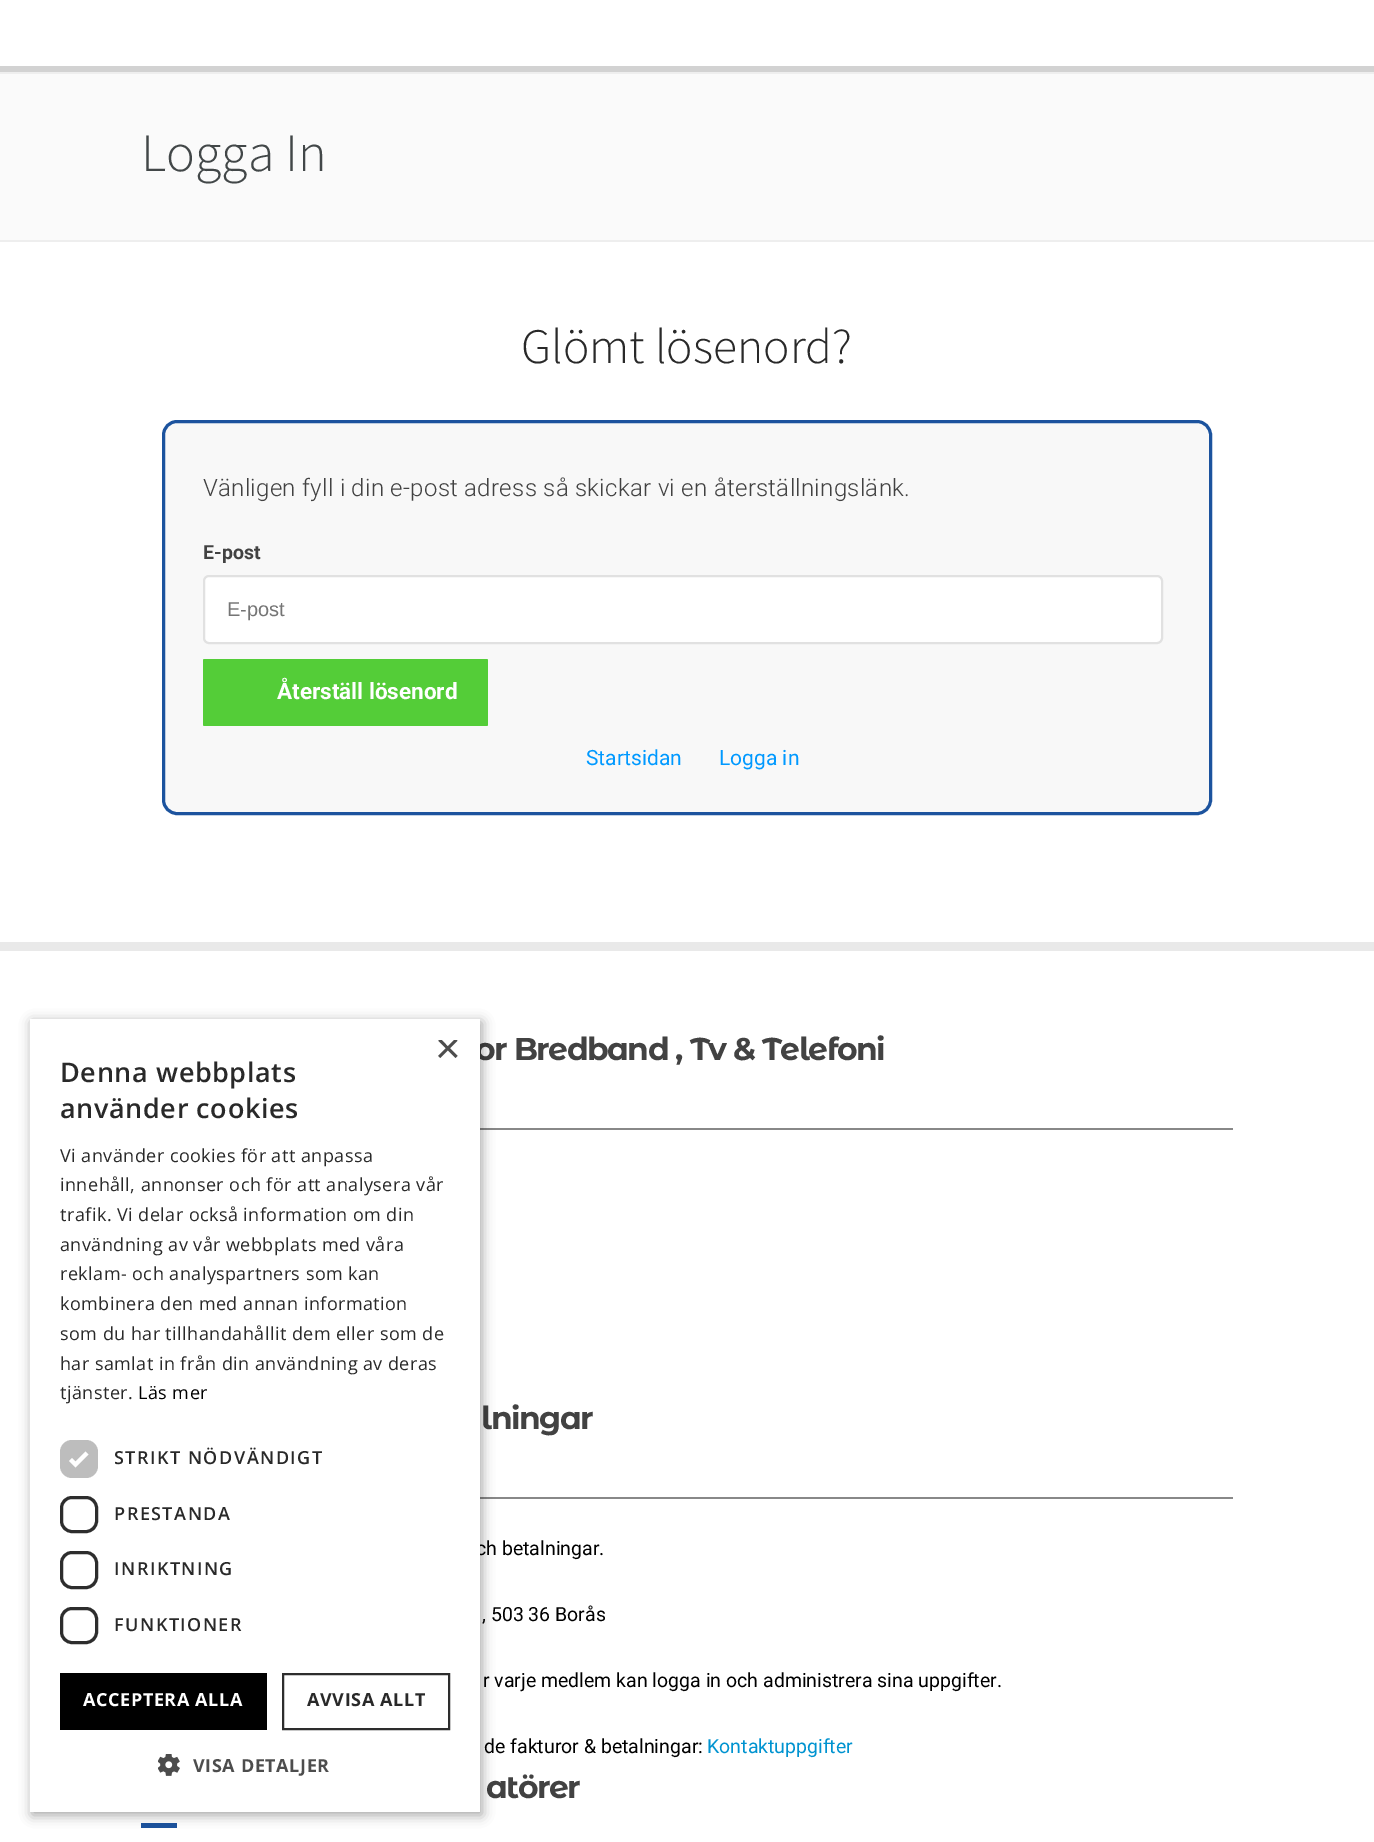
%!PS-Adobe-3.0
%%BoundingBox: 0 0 1374 1842
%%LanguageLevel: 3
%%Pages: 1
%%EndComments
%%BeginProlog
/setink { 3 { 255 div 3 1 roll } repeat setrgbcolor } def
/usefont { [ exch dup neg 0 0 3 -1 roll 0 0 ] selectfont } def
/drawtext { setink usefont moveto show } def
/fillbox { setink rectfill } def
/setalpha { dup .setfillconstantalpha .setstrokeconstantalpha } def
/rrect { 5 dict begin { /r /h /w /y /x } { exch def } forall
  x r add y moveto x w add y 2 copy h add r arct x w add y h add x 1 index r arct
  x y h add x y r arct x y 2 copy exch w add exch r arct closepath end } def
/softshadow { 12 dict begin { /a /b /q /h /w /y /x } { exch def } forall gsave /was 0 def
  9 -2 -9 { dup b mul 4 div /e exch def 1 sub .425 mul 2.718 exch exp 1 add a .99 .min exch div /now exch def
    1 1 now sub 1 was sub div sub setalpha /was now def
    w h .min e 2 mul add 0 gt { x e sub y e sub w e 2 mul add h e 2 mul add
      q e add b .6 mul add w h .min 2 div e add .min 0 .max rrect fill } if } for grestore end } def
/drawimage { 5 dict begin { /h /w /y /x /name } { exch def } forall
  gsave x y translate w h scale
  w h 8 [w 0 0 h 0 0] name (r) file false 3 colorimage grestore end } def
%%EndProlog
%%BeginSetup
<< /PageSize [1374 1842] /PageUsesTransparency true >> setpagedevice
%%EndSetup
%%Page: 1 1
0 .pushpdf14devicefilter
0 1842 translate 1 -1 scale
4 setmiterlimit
0 0 1374 1842 255 255 255 fillbox
0 66 1374 6 210 210 210 fillbox
0 74 1374 166 250 250 250 fillbox
0 72 1374 2 238 238 238 fillbox
0 240 1374 2 238 238 238 fillbox
(Logga In) 141 171 /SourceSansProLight-Light 54 66 71 72 drawtext
(Glömt lösenord?) 521 363 /SourceSansProLight-Light 49.5 41 41 41 drawtext
248 248 248 setink
163.5 421.5 1047 392 13.5 rrect gsave fill grestore
28 83 158 setink
3 setlinewidth
stroke
/Roboto-Light 24 usefont
66 66 66 setink
203 496 moveto 0.3 0 (Vänligen fyll i din e-post adress så skickar vi en återställningslänk.) ashow
(E-post) 203 559 /Roboto-Bold 19.5 66 66 66 drawtext
255 255 255 setink
204 576 958 67 5 rrect gsave fill grestore
225 225 225 setink
2 setlinewidth
stroke
(E-post) 227 616 /LiberationSans-Regular 20 117 117 117 drawtext
84 205 56 setink
203 659 285 67 1.5 rrect fill
(Återställ lösenord) 277 699 /Roboto-Bold 22.5 255 255 255 drawtext
(Startsidan) 586 765 /Roboto-Regular 21 0 153 255 drawtext
(Logga in) 719 765 /Roboto-Regular 21 0 153 255 drawtext
0 942 1374 9 233 233 233 fillbox
480 1128 753 2 136 136 136 fillbox
/MontserratAlternates-Bold 31.5 usefont
66 66 66 setink
475 1060 moveto -1.5 0 (or Bredband , Tv & Telefoni) ashow
480 1497 753 2 136 136 136 fillbox
66 66 66 setink
481 1429 moveto -1.5 0 (lningar) ashow
(ch betalningar.) 476 1555 /Roboto-Regular 19.5 0 0 0 drawtext
(, 503 36 Borås) 482 1621 /Roboto-Regular 19.5 0 0 0 drawtext
(r varje medlem kan logga in och administrera sina uppgifter.) 483 1687 /Roboto-Regular 19.5 0 0 0 drawtext
(de fakturor & betalningar:) 484 1753 /Roboto-Regular 19.5 0 0 0 drawtext
(Kontaktuppgifter) 707 1753 /Roboto-Regular 19.5 0 147 208 drawtext
/MontserratAlternates-Bold 31.5 usefont
66 66 66 setink
486 1798 moveto -1.5 0 (atörer) ashow
141 1823 36 5 28 83 158 fillbox
0 0 0 setink
32 1022 450 793 0 6 0.35 softshadow
30 1019 450 793 255 255 255 fillbox
gsave
435 1040 23 22 rectclip
(×) 435 1063 /LiberationSans-Regular 44 77 77 77 drawtext
grestore
/OpenSans-SemiBold 27 usefont
41 41 41 setink
60 1082 moveto 0.6 0 (Denna webbplats) ashow
60 1118 moveto 0.6 0 (använder cookies) ashow
/OpenSans-Regular 18 usefont
60 1162 moveto 0.45 0 (Vi använder cookies för att anpassa) ashow
60 1191 moveto 0.45 0 (innehåll, annonser och för att analysera vår) ashow
60 1221 moveto 0.45 0 (trafik. Vi delar också information om din) ashow
60 1251 moveto 0.45 0 (användning av vår webbplats med våra) ashow
60 1280 moveto 0.45 0 (reklam- och analyspartners som kan) ashow
60 1310 moveto 0.45 0 (kombinera den med annan information) ashow
60 1340 moveto 0.45 0 (som du har tillhandahållit dem eller som de) ashow
60 1370 moveto 0.45 0 (har samlat in från din användning av deras) ashow
60 1399 moveto 0.45 0 (tjänster.) ashow
0 0 0 setink
138 1399 moveto 0.45 0 (Läs mer) ashow
189 189 189 setink
60 1440 38 38 12 rrect fill
255 255 255 setink
3.9 setlinewidth
70.5 1459.5 moveto 75.5 1464.5 lineto 87 1453 lineto stroke
/OpenSans-SemiBold 18 usefont
41 41 41 setink
114 1464 moveto 1.5 0 (STRIKT NÖDVÄNDIGT) ashow
45 45 45 setink
3 setlinewidth
61.5 1497.5 35 34 10.5 rrect stroke
41 41 41 setink
114 1520 moveto 1.5 0 (PRESTANDA) ashow
45 45 45 setink
61.5 1552.5 35 35 10.5 rrect stroke
41 41 41 setink
114 1575 moveto 1.5 0 (INRIKTNING) ashow
45 45 45 setink
61.5 1608.5 35 34 10.5 rrect stroke
41 41 41 setink
114 1631 moveto 1.5 0 (FUNKTIONER) ashow
60 1673 207 57 0 0 0 fillbox
/OpenSans-Bold 18 usefont
255 255 255 setink
83 1706 moveto 0.6 0 (ACCEPTERA ALLA) ashow
45 45 45 setink
2 setlinewidth
283 1674 166 55 rectstroke
41 41 41 setink
307 1706 moveto 0.6 0 (AVVISA ALLT) ashow
(assets/img1.rgb) 158 1754 22 22 drawimage
77 77 77 setink
193 1772 moveto 0.6 0 (VISA DETALJER) ashow
.poppdf14devicefilter showpage
%%EOF
